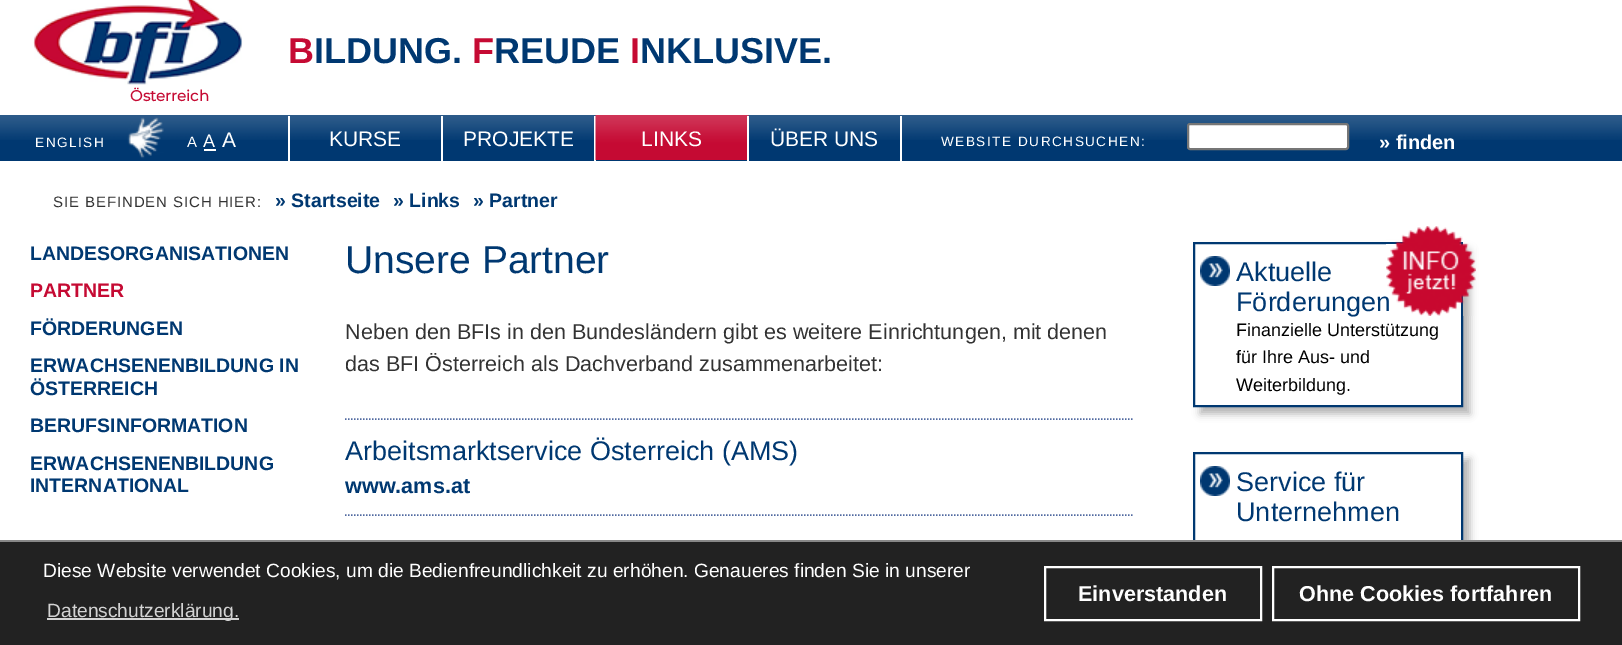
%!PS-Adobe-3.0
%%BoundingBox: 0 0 1622 645
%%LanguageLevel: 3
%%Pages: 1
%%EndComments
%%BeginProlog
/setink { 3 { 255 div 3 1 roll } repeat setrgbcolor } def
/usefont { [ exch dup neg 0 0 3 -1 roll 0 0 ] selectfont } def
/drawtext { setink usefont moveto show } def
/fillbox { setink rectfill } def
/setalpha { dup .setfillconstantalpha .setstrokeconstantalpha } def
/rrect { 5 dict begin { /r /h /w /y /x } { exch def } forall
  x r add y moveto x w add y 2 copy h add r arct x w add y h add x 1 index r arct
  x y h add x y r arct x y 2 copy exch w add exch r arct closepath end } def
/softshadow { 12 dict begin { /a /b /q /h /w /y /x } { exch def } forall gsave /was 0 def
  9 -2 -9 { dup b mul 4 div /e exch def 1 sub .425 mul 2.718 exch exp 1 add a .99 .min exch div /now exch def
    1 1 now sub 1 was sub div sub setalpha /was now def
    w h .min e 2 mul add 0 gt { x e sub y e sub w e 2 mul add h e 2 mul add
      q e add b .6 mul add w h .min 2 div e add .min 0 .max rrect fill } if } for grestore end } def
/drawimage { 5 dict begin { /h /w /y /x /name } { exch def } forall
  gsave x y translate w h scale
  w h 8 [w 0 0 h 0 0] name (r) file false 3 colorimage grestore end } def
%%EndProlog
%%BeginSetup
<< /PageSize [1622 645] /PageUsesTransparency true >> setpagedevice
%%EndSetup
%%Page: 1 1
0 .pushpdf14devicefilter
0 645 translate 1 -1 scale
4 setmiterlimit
0 0 1622 645 255 255 255 fillbox
(B) 288 63 /LiberationSans-Bold 36 197 10 51 drawtext
(ILDUNG.) 314 63 /LiberationSans-Bold 36 0 56 113 drawtext
(F) 472 63 /LiberationSans-Bold 36 197 10 51 drawtext
(REUDE) 494 63 /LiberationSans-Bold 36 0 56 113 drawtext
(I) 630 63 /LiberationSans-Bold 36 197 10 51 drawtext
(NKLUSIVE.) 640 63 /LiberationSans-Bold 36 0 56 113 drawtext
(assets/img1.rgb) 33 0 210 85 drawimage
(Österreich) 130 101 /Montserrat-Bold 15 197 10 51 drawtext
0 140 1622 21 0 56 113 fillbox
(assets/img2.rgb) 0 115 1622 25 drawimage
/LiberationSans-Regular 13.6 usefont
255 255 255 setink
35 147 moveto 1.5 0 (ENGLISH) ashow
(assets/img3.rgb) 127 117 37 42 drawimage
288 116 2 45 255 255 255 fillbox
(A) 187 147 /LiberationSans-Regular 15 255 255 255 drawtext
(A) 203 147 /LiberationSans-Regular 18 255 255 255 drawtext
204 149 12 2 255 255 255 fillbox
(A) 222 147 /LiberationSans-Regular 21 255 255 255 drawtext
441 116 2 45 255 255 255 fillbox
(KURSE) 329 146 /LiberationSans-Regular 21 255 255 255 drawtext
594 116 2 45 255 255 255 fillbox
(PROJEKTE) 463 146 /LiberationSans-Regular 21 255 255 255 drawtext
(assets/img4.rgb) 595 115 154 45 drawimage
747 116 2 45 255 255 255 fillbox
(LINKS) 641 146 /LiberationSans-Regular 21 255 255 255 drawtext
900 116 2 45 255 255 255 fillbox
(ÜBER UNS) 770 146 /LiberationSans-Regular 21 255 255 255 drawtext
/LiberationSans-Regular 13.6 usefont
941 146 moveto 1.5 0 (WEBSITE DURCHSUCHEN:) ashow
1188 124 160 25 2 rrect gsave fill grestore
118 118 118 setink
2 setlinewidth
stroke
(» finden) 1379 149 /LiberationSans-Bold 20 255 255 255 drawtext
/LiberationSans-Regular 15 usefont
51 51 51 setink
53 207 moveto 0.9 0 (SIE BEFINDEN SICH HIER:) ashow
(» Startseite) 275 207 /LiberationSans-Bold 19.5 0 56 113 drawtext
(» Links) 393 207 /LiberationSans-Bold 19.5 0 56 113 drawtext
(» Partner) 473 207 /LiberationSans-Bold 19.5 0 56 113 drawtext
(Unsere Partner) 345 273 /LiberationSans-Regular 39 0 56 113 drawtext
(Neben den BFIs in den Bundesländern gibt es weitere Einrichtungen, mit denen) 345 339 /LiberationSans-Regular 21.6 51 51 51 drawtext
(das BFI Österreich als Dachverband zusammenarbeitet:) 345 371 /LiberationSans-Regular 21.6 51 51 51 drawtext
80 105 160 setink
1.5 setlinewidth
[1.5 1.5] 0 setdash
345 419 moveto 1132.5 419 lineto stroke
(Arbeitsmarktservice Österreich \(AMS\)) 345 460 /LiberationSans-Regular 27 0 56 113 drawtext
(www.ams.at) 345 493 /LiberationSans-Bold 21.6 0 56 113 drawtext
80 105 160 setink
345 515 moveto 1132.5 515 lineto stroke
(LANDESORGANISATIONEN) 30 260 /LiberationSans-Bold 19.5 0 56 113 drawtext
(PARTNER) 30 297 /LiberationSans-Bold 19.5 197 10 51 drawtext
(FÖRDERUNGEN) 30 335 /LiberationSans-Bold 19.5 0 56 113 drawtext
(ERWACHSENENBILDUNG IN) 30 372 /LiberationSans-Bold 19.5 0 56 113 drawtext
(ÖSTERREICH) 30 395 /LiberationSans-Bold 19.5 0 56 113 drawtext
(BERUFSINFORMATION) 30 432 /LiberationSans-Bold 19.5 0 56 113 drawtext
(ERWACHSENENBILDUNG) 30 470 /LiberationSans-Bold 19.5 0 56 113 drawtext
(INTERNATIONAL) 30 492 /LiberationSans-Bold 19.5 0 56 113 drawtext
179 179 179 setink
1200 249 270 165 0 4 1 softshadow
1195 244 266 161 255 255 255 fillbox
(assets/img5.rgb) 1200 256 30 30 drawimage
0 56 113 setink
2 setlinewidth
[] 0 setdash
1194 243 268 163 rectstroke
(Aktuelle) 1236 281 /LiberationSans-Regular 27 0 56 113 drawtext
(Förderungen) 1236 311 /LiberationSans-Regular 27 0 56 113 drawtext
(assets/img6.rgb) 1386 226 90 90 drawimage
(Finanzielle Unterstützung) 1236 336 /LiberationSans-Regular 18 0 0 0 drawtext
(für Ihre Aus- und) 1236 363 /LiberationSans-Regular 18 0 0 0 drawtext
(Weiterbildung.) 1236 391 /LiberationSans-Regular 18 0 0 0 drawtext
179 179 179 setink
1200 459 270 165 0 4 1 softshadow
1195 454 266 86 255 255 255 fillbox
(assets/img5.rgb) 1200 466 30 30 drawimage
0 56 113 setink
1194 453 268 163 rectstroke
(Service für) 1236 491 /LiberationSans-Regular 27 0 56 113 drawtext
(Unternehmen) 1236 521 /LiberationSans-Regular 27 0 56 113 drawtext
0 542 1622 103 34 34 34 fillbox
0 540 1622 2 136 136 136 fillbox
(Diese Website verwendet Cookies, um die Bedienfreundlichkeit zu erhöhen. Genaueres finden Sie in unserer) 43 577 /LiberationSans-Regular 19.2 255 255 255 drawtext
47 618 192 2 211 211 211 fillbox
(Datenschutzerklärung.) 47 617 /LiberationSans-Regular 19.2 211 211 211 drawtext
255 255 255 setink
1045 567 216 53 rectstroke
(Einverstanden) 1078 601 /LiberationSans-Bold 21.6 255 255 255 drawtext
1273 567 306 53 rectstroke
(Ohne Cookies fortfahren) 1299 601 /LiberationSans-Bold 21.6 255 255 255 drawtext
.poppdf14devicefilter showpage
%%EOF
